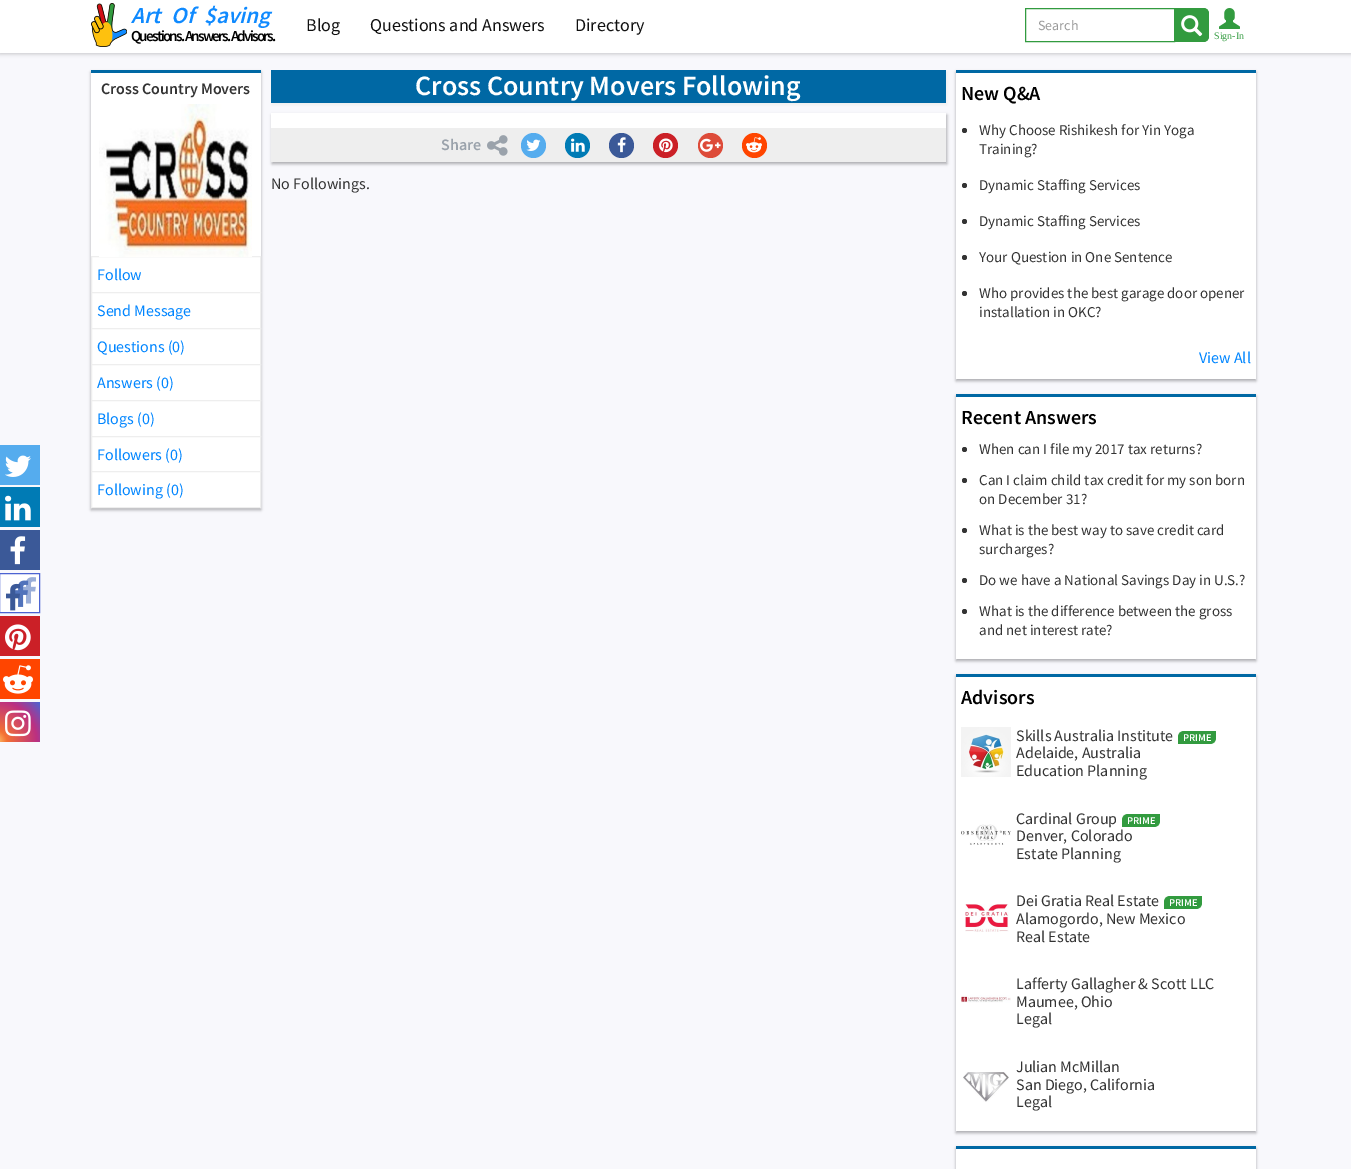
%!PS-Adobe-3.0
%%BoundingBox: 0 0 1351 1169
%%LanguageLevel: 3
%%Pages: 1
%%EndComments
%%BeginProlog
/setink { 3 { 255 div 3 1 roll } repeat setrgbcolor } def
/usefont { [ exch dup neg 0 0 3 -1 roll 0 0 ] selectfont } def
/drawtext { setink usefont moveto show } def
/fillbox { setink rectfill } def
/setalpha { dup .setfillconstantalpha .setstrokeconstantalpha } def
/disc { newpath 0 360 arc closepath } def
/rrect { 5 dict begin { /r /h /w /y /x } { exch def } forall
  x r add y moveto x w add y 2 copy h add r arct x w add y h add x 1 index r arct
  x y h add x y r arct x y 2 copy exch w add exch r arct closepath end } def
/softshadow { 12 dict begin { /a /b /q /h /w /y /x } { exch def } forall gsave /was 0 def
  9 -2 -9 { dup b mul 4 div /e exch def 1 sub .425 mul 2.718 exch exp 1 add a .99 .min exch div /now exch def
    1 1 now sub 1 was sub div sub setalpha /was now def
    w h .min e 2 mul add 0 gt { x e sub y e sub w e 2 mul add h e 2 mul add
      q e add b .6 mul add w h .min 2 div e add .min 0 .max rrect fill } if } for grestore end } def
/drawimage { 5 dict begin { /h /w /y /x /name } { exch def } forall
  gsave x y translate w h scale
  w h 8 [w 0 0 h 0 0] name (r) file false 3 colorimage grestore end } def
%%EndProlog
%%BeginSetup
<< /PageSize [1351 1169] /PageUsesTransparency true >> setpagedevice
%%EndSetup
%%Page: 1 1
0 .pushpdf14devicefilter
0 1169 translate 1 -1 scale
4 setmiterlimit
0 0 1351 1169 248 248 252 fillbox
0 0 0 setink
0 1 1351 53 0 2 0.2 softshadow
0 0 1351 53 255 255 255 fillbox
(assets/img1.rgb) 91 3 36 44 drawimage
(Art) 131 23 /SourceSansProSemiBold-SemiBoldItalic 23 15 138 255 drawtext
(Of) 171 23 /SourceSansProSemiBold-SemiBoldItalic 23 15 138 255 drawtext
($aving) 204 23 /SourceSansProSemiBold-SemiBoldItalic 23 15 138 255 drawtext
/SourceSansProSemiBold-SemiBold 15.25 usefont
0 0 0 setink
131 41 moveto -1.8 0 (Questions. Answers. Advisors.) ashow
(Blog) 306 31 /SourceSansPro-Regular 18 16 16 16 drawtext
(Questions and Answers) 370 31 /SourceSansPro-Regular 18 16 16 16 drawtext
(Directory) 575 31 /SourceSansPro-Regular 18 16 16 16 drawtext
50 155 63 setink
1025.5 8.5 149 33 rectstroke
(Search) 1038 30 /SourceSansPro-Regular 14 153 153 153 drawtext
50 155 63 setink
1175 8 moveto 1203 8 lineto 1206.5 8 1209 10.5 1209 14 curveto 1209 36 lineto 1209 39.5 1206.5 42 1203 42 curveto 1175 42 lineto closepath fill
1175 8 moveto 1203 8 lineto 1206.5 8 1209 10.5 1209 14 curveto 1209 36 lineto 1209 39.5 1206.5 42 1203 42 curveto 1175 42 lineto closepath 1175 9 moveto 1203 9 lineto 1206 9 1208 11 1208 14 curveto 1208 36 lineto 1208 39 1206 41 1203 41 curveto 1175 41 lineto closepath eofill
(assets/img2.rgb) 1181 15 22 22 drawimage
(assets/img3.rgb) 1219 8 21 21 drawimage
(Sign-In) 1214 39 /LiberationSerif-Regular 10 50 155 63 drawtext
0 445 40 40 85 172 238 fillbox
(assets/img4.rgb) 5 455 26 22 drawimage
0 487 40 40 0 123 181 fillbox
(assets/img5.rgb) 5 495 26 26 drawimage
0 530 40 40 59 89 152 fillbox
(assets/img6.rgb) 10 536 16 29 drawimage
0 574 39 38 255 255 255 fillbox
(assets/img7.rgb) 6 577 30 34 drawimage
76 99 210 setink
-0.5 573.5 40 39 rectstroke
0 616 40 40 203 32 39 fillbox
(assets/img8.rgb) 5 624 26 27 drawimage
0 659 40 40 255 69 0 fillbox
(assets/img9.rgb) 3 665 30 29 drawimage
gsave 0 702 moveto 40 702 lineto 40 742 lineto 0 742 lineto closepath clip newpath -5 742 translate 60 60 scale
<< /ShadingType 3 /ColorSpace /DeviceRGB /Coords [0 0 0 0 0 1] /Extend [true true] /Function << /FunctionType 3 /Domain [0 1] /Functions [<< /FunctionType 2 /Domain [0 1] /C0 [0.996 0.835 0.463] /C1 [0.957 0.443 0.2] /N 1 >> << /FunctionType 2 /Domain [0 1] /C0 [0.957 0.443 0.2] /C1 [0.737 0.188 0.506] /N 1 >> << /FunctionType 2 /Domain [0 1] /C0 [0.737 0.188 0.506] /C1 [0.298 0.388 0.824] /N 1 >>] /Bounds [0.2 0.7] /Encode [0 1 0 1 0 1] >> >> shfill grestore
(assets/img10.rgb) 5 710 26 27 drawimage
0 0 0 setink
91 72 170 438 0 1.5 0.3 softshadow
91 73 170 219 255 255 255 fillbox
91 70 170 3 0 104 164 fillbox
(Cross Country Movers) 101 94 /SourceSansProSemiBold-SemiBold 16 51 51 51 drawtext
238 238 238 setink
91.5 256.5 169 36 rectstroke
(assets/img11.rgb) 99 104 153 153 drawimage
(Follow) 97 280 /SourceSansPro-Regular 16 0 133 255 drawtext
255 255 255 setink
91.5 292.5 moveto 260.5 292.5 lineto 260.5 328.5 lineto 91.5 328.5 lineto closepath gsave fill grestore
238 238 238 setink
stroke
(Send Message) 97 316 /SourceSansPro-Regular 16 0 133 255 drawtext
255 255 255 setink
91.5 328.5 moveto 260.5 328.5 lineto 260.5 364.5 lineto 91.5 364.5 lineto closepath gsave fill grestore
238 238 238 setink
stroke
(Questions \(0\)) 97 352 /SourceSansPro-Regular 16 0 133 255 drawtext
255 255 255 setink
91.5 364.5 moveto 260.5 364.5 lineto 260.5 400.5 lineto 91.5 400.5 lineto closepath gsave fill grestore
238 238 238 setink
stroke
(Answers \(0\)) 97 388 /SourceSansPro-Regular 16 0 133 255 drawtext
255 255 255 setink
91.5 400.5 moveto 260.5 400.5 lineto 260.5 436.5 lineto 91.5 436.5 lineto closepath gsave fill grestore
238 238 238 setink
stroke
(Blogs \(0\)) 97 424 /SourceSansPro-Regular 16 0 133 255 drawtext
255 255 255 setink
91.5 436.5 moveto 260.5 436.5 lineto 260.5 471.5 lineto 91.5 471.5 lineto closepath gsave fill grestore
238 238 238 setink
stroke
(Followers \(0\)) 97 460 /SourceSansPro-Regular 16 0 133 255 drawtext
255 255 255 setink
91.5 471.5 moveto 260.5 471.5 lineto 260.5 507.5 lineto 91.5 507.5 lineto closepath gsave fill grestore
238 238 238 setink
stroke
(Following \(0\)) 97 495 /SourceSansPro-Regular 16 0 133 255 drawtext
238 238 238 setink
272 72 675 33 0 1.5 1 softshadow
271 70 675 33 0 104 164 fillbox
(Cross Country Movers Following) 415 95 /SourceSansProSemiBold-SemiBold 28 255 255 255 drawtext
0 0 0 setink
272 115 675 49 0 1.5 0.3 softshadow
271 113 675 15 255 255 255 fillbox
271 128 675 34 238 238 238 fillbox
(Share) 441 150 /SourceSansProSemiBold-SemiBold 16 154 162 171 drawtext
(assets/img12.rgb) 487 135 21 21 drawimage
85 172 238 setink
533.5 145.5 12.5 disc fill
(assets/img13.rgb) 526 139 15 12 drawimage
0 123 181 setink
577.5 145.5 12.5 disc fill
(assets/img14.rgb) 571 138 14 14 drawimage
59 89 152 setink
621.5 145.5 12.5 disc fill
(assets/img15.rgb) 617 137 9 16 drawimage
203 32 39 setink
665.5 145.5 12.5 disc fill
(assets/img16.rgb) 659 138 14 15 drawimage
221 75 57 setink
710.5 145.5 12.5 disc fill
(assets/img17.rgb) 700 138 21 14 drawimage
255 69 0 setink
754.5 145.5 12.5 disc fill
(assets/img18.rgb) 746 137 16 16 drawimage
(No Followings.) 271 189 /SourceSansPro-Regular 16 51 51 51 drawtext
0 0 0 setink
956 72 300 309 0 1.5 0.3 softshadow
956 73 300 306 255 255 255 fillbox
956 70 300 3 0 104 164 fillbox
(New Q&A) 961 100 /SourceSansProSemiBold-SemiBold 20 0 0 0 drawtext
51 51 51 setink
964.5 130.5 2.5 disc fill
(Why Choose Rishikesh for Yin Yoga) 979 135 /SourceSansPro-Regular 15 51 51 51 drawtext
(Training?) 979 154 /SourceSansPro-Regular 15 51 51 51 drawtext
964.5 185.5 2.5 disc fill
(Dynamic Staffing Services) 979 190 /SourceSansPro-Regular 15 51 51 51 drawtext
964.5 221.5 2.5 disc fill
(Dynamic Staffing Services) 979 226 /SourceSansPro-Regular 15 51 51 51 drawtext
964.5 257.5 2.5 disc fill
(Your Question in One Sentence) 979 262 /SourceSansPro-Regular 15 51 51 51 drawtext
964.5 293.5 2.5 disc fill
(Who provides the best garage door opener) 979 298 /SourceSansPro-Regular 15 51 51 51 drawtext
(installation in OKC?) 979 317 /SourceSansPro-Regular 15 51 51 51 drawtext
(View All) 1199 363 /SourceSansPro-Regular 16 0 133 255 drawtext
0 0 0 setink
956 396 300 265 0 1.5 0.3 softshadow
956 397 300 262 255 255 255 fillbox
956 394 300 3 0 104 164 fillbox
(Recent Answers) 961 424 /SourceSansProSemiBold-SemiBold 20 0 0 0 drawtext
51 51 51 setink
964.5 449.5 2.5 disc fill
(When can I file my 2017 tax returns?) 979 454 /SourceSansPro-Regular 15 51 51 51 drawtext
964.5 480.5 2.5 disc fill
(Can I claim child tax credit for my son born) 979 485 /SourceSansPro-Regular 15 51 51 51 drawtext
(on December 31?) 979 504 /SourceSansPro-Regular 15 51 51 51 drawtext
964.5 530.5 2.5 disc fill
(What is the best way to save credit card) 979 535 /SourceSansPro-Regular 15 51 51 51 drawtext
(surcharges?) 979 554 /SourceSansPro-Regular 15 51 51 51 drawtext
964.5 580.5 2.5 disc fill
(Do we have a National Savings Day in U.S.?) 979 585 /SourceSansPro-Regular 15 51 51 51 drawtext
964.5 611.5 2.5 disc fill
(What is the difference between the gross) 979 616 /SourceSansPro-Regular 15 51 51 51 drawtext
(and net interest rate?) 979 635 /SourceSansPro-Regular 15 51 51 51 drawtext
0 0 0 setink
956 676 300 457 0 1.5 0.3 softshadow
956 677 300 454 255 255 255 fillbox
956 674 300 3 0 104 164 fillbox
(Advisors) 961 704 /SourceSansProSemiBold-SemiBold 20 0 0 0 drawtext
(assets/img19.rgb) 961 727 50 50 drawimage
(Skills Australia Institute) 1016 741 /SourceSansPro-Regular 16 51 51 51 drawtext
50 155 63 setink
1184 731 moveto 1216 731 lineto 1216 738 lineto 1216 741.5 1213.5 744 1210 744 curveto 1178 744 lineto 1178 737 lineto 1178 733.5 1180.5 731 1184 731 curveto closepath fill
(PRIME) 1183 741 /SourceSansProSemiBold-SemiBold 10.5 255 255 255 drawtext
(Adelaide, Australia) 1016 758 /SourceSansPro-Regular 16 51 51 51 drawtext
(Education Planning) 1016 776 /SourceSansPro-Regular 16 51 51 51 drawtext
(assets/img20.rgb) 961 824 50 21 drawimage
(Cardinal Group) 1016 824 /SourceSansPro-Regular 16 51 51 51 drawtext
50 155 63 setink
1128 814 moveto 1160 814 lineto 1160 821 lineto 1160 824.5 1157.5 827 1154 827 curveto 1122 827 lineto 1122 820 lineto 1122 816.5 1124.5 814 1128 814 curveto closepath fill
(PRIME) 1127 824 /SourceSansProSemiBold-SemiBold 10.5 255 255 255 drawtext
(Denver, Colorado) 1016 841 /SourceSansPro-Regular 16 51 51 51 drawtext
(Estate Planning) 1016 859 /SourceSansPro-Regular 16 51 51 51 drawtext
(assets/img21.rgb) 965 904 44 28 drawimage
(Dei Gratia Real Estate) 1016 906 /SourceSansPro-Regular 16 51 51 51 drawtext
50 155 63 setink
1170 896 moveto 1202 896 lineto 1202 903 lineto 1202 906.5 1199.5 909 1196 909 curveto 1164 909 lineto 1164 902 lineto 1164 898.5 1166.5 896 1170 896 curveto closepath fill
(PRIME) 1169 906 /SourceSansProSemiBold-SemiBold 10.5 255 255 255 drawtext
(Alamogordo, New Mexico) 1016 924 /SourceSansPro-Regular 16 51 51 51 drawtext
(Real Estate) 1016 942 /SourceSansPro-Regular 16 51 51 51 drawtext
(assets/img22.rgb) 961 995 50 8 drawimage
(Lafferty Gallagher & Scott LLC) 1016 989 /SourceSansPro-Regular 16 51 51 51 drawtext
(Maumee, Ohio) 1016 1007 /SourceSansPro-Regular 16 51 51 51 drawtext
(Legal) 1016 1024 /SourceSansPro-Regular 16 51 51 51 drawtext
(assets/img23.rgb) 963 1072 46 30 drawimage
(Julian McMillan) 1016 1072 /SourceSansPro-Regular 16 51 51 51 drawtext
(San Diego, California) 1016 1090 /SourceSansPro-Regular 16 51 51 51 drawtext
(Legal) 1016 1107 /SourceSansPro-Regular 16 51 51 51 drawtext
0 0 0 setink
956 1148 300 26 0 1.5 0.3 softshadow
956 1149 300 20 255 255 255 fillbox
956 1146 300 3 0 104 164 fillbox
.poppdf14devicefilter showpage
%%EOF
